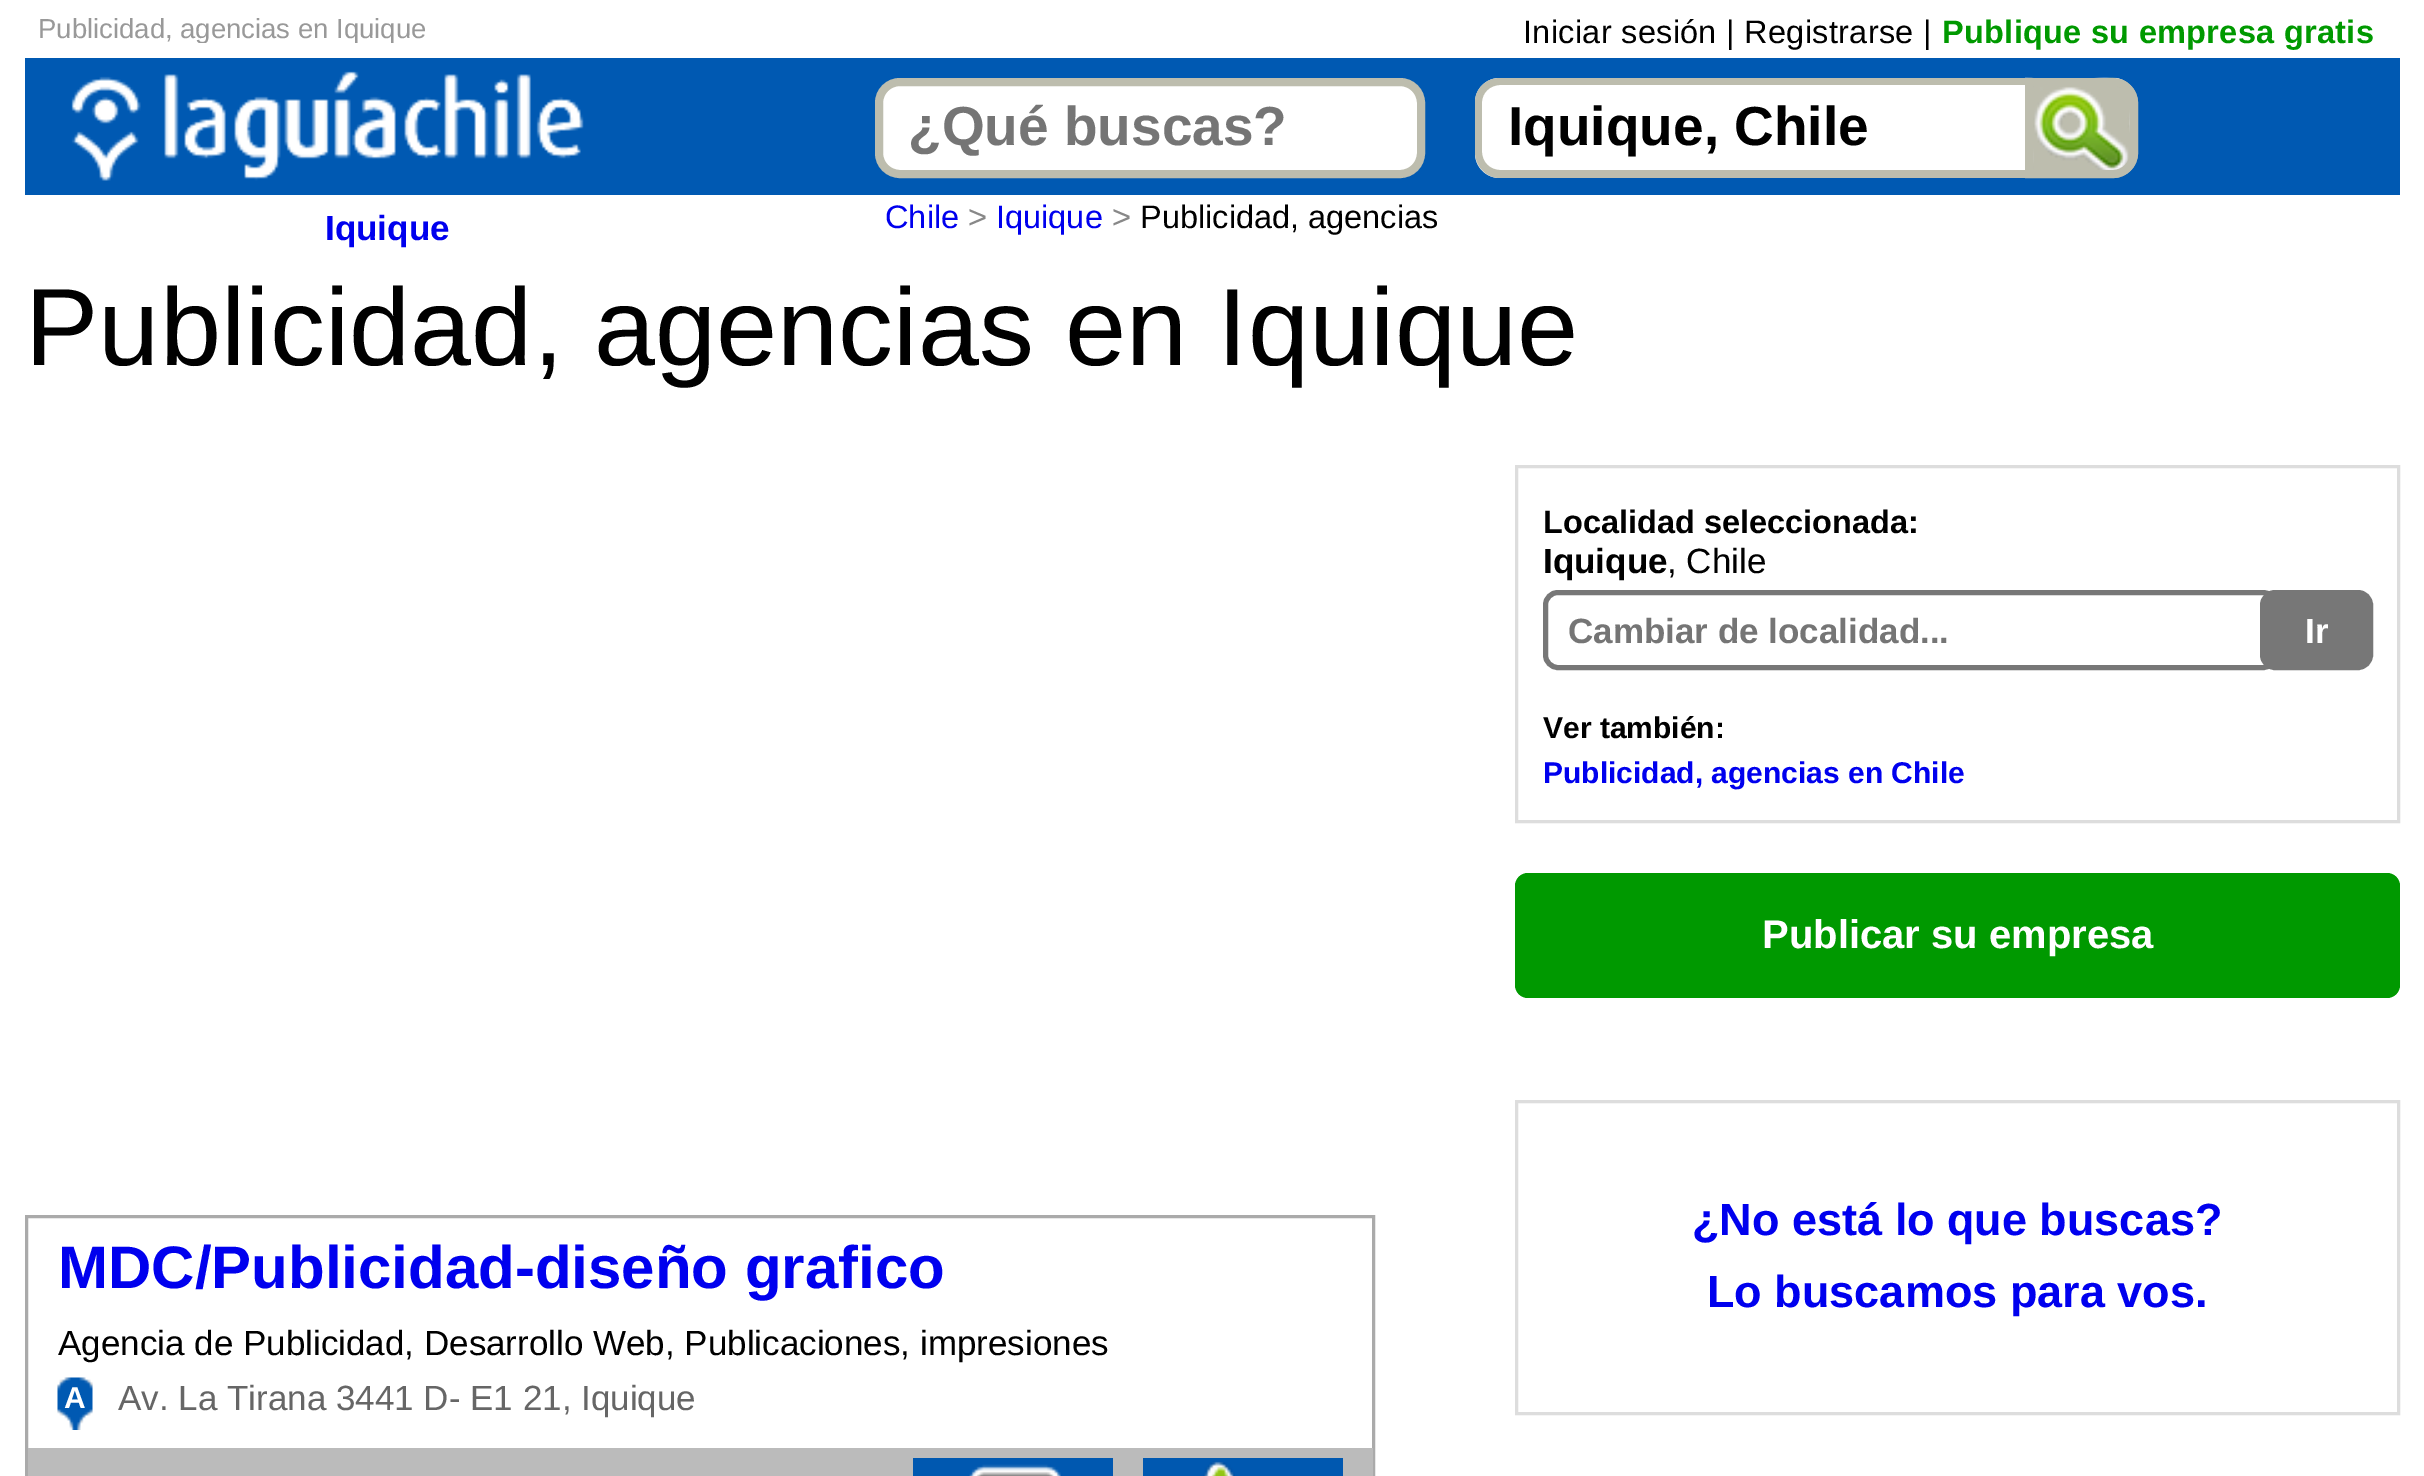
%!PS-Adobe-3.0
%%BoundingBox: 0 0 2424 1476
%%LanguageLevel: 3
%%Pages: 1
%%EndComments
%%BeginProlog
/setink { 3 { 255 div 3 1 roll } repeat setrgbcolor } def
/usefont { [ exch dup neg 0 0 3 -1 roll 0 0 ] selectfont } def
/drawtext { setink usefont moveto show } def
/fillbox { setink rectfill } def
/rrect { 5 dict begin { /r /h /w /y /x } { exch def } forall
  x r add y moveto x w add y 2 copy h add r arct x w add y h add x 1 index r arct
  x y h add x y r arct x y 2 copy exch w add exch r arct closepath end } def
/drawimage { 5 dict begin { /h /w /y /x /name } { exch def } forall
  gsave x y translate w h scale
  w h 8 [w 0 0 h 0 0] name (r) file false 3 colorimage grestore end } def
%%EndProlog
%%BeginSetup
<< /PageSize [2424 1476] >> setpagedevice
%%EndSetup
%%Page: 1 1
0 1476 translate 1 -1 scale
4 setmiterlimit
0 0 2424 1476 255 255 255 fillbox
gsave
38 13 1100 30 rectclip
(Publicidad, agencias en Iquique) 38 38 /LiberationSans-Regular 27.5 153 153 153 drawtext
grestore
/LiberationSans-Regular 32.5 usefont
0 0 0 setink
1523 43 moveto 0.3 0 (Iniciar sesión | Registrarse |) ashow
/LiberationSans-Bold 32.5 usefont
0 153 0 setink
1942 43 moveto 0.3 0 (Publique su empresa gratis) ashow
25 58 2375 137 0 89 178 fillbox
(assets/img1.rgb) 71 71 513 110 drawimage
255 255 255 setink
879 82 542 92 21 rrect gsave fill grestore
189 189 174 setink
8 setlinewidth
stroke
(¿Qué buscas?) 908 145 /LiberationSans-Bold 55 117 117 117 drawtext
255 255 255 setink
1500 78 moveto 2025 78 lineto 2025 178 lineto 1500 178 lineto 1486 178 1475 167 1475 153 curveto 1475 103 lineto 1475 89 1486 78 1500 78 curveto closepath fill
189 189 174 setink
1500 78 moveto 2025 78 lineto 2025 178 lineto 1500 178 lineto 1486 178 1475 166 1475 152 curveto 1475 102 lineto 1475 89 1486 78 1500 78 curveto closepath 1500 85 moveto 2025 85 lineto 2025 170 lineto 1500 170 lineto 1490 170 1482 162 1482 152 curveto 1482 102 lineto 1482 93 1490 85 1500 85 curveto closepath eofill
(Iquique, Chile) 1508 145 /LiberationSans-Bold 55 0 0 0 drawtext
189 189 174 setink
2025 78 moveto 2113 78 lineto 2127 78 2138 89 2138 103 curveto 2138 153 lineto 2138 167 2127 178 2113 178 curveto 2025 178 lineto closepath fill
(assets/img2.rgb) 2025 77 113 100 drawimage
2029 82 moveto 2113 82 lineto 2124.5 82 2134 91.5 2134 103 curveto 2134 153 lineto 2134 164.5 2124.5 174 2113 174 curveto 2029 174 lineto closepath stroke
(Iquique) 325 240 /LiberationSans-Bold 35 0 0 238 drawtext
(Chile) 885 228 /LiberationSans-Regular 32.5 0 0 238 drawtext
(>) 968 228 /LiberationSans-Regular 32.5 136 136 136 drawtext
(Iquique) 996 228 /LiberationSans-Regular 32.5 0 0 238 drawtext
(>) 1112 228 /LiberationSans-Regular 32.5 136 136 136 drawtext
(Publicidad, agencias) 1140 228 /LiberationSans-Regular 32.5 0 0 0 drawtext
(Publicidad, agencias en Iquique) 25 365 /LiberationSans-Regular 110 0 0 0 drawtext
170 170 170 setink
3 setlinewidth
26.5 1216.5 1347 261 rectstroke
(MDC/Publicidad-diseño grafico) 58 1288 /LiberationSans-Bold 60 0 0 238 drawtext
(Agencia de Publicidad, Desarrollo Web, Publicaciones, impresiones) 58 1355 /LiberationSans-Regular 35 0 0 0 drawtext
(assets/img3.rgb) 57 1377 36 53 drawimage
(A) 64 1408 /LiberationSans-Bold 30 255 255 255 drawtext
(Av. La Tirana 3441 D- E1 21, Iquique) 118 1410 /LiberationSans-Regular 35 102 102 102 drawtext
28 1448 1345 28 187 187 187 fillbox
913 1458 200 18 0 88 176 fillbox
(assets/img4.rgb) 969 1464 92 12 drawimage
1143 1458 200 18 0 88 176 fillbox
(assets/img5.rgb) 1203 1461 32 15 drawimage
221 221 221 setink
1516.5 466.5 882 355 rectstroke
(Localidad seleccionada:) 1543 533 /LiberationSans-Bold 32.5 0 0 0 drawtext
(Iquique) 1543 573 /LiberationSans-Bold 35 0 0 0 drawtext
(, Chile) 1667 573 /LiberationSans-Regular 35 0 0 0 drawtext
119 119 119 setink
5 setlinewidth
1545.5 592.5 730 75 12.5 rrect stroke
(Cambiar de localidad...) 1568 643 /LiberationSans-Bold 35 117 117 117 drawtext
119 119 119 setink
2261.5 591.5 110 77 13.5 rrect gsave fill grestore
3 setlinewidth
stroke
(Ir) 2305 643 /LiberationSans-Bold 35 255 255 255 drawtext
(Ver también:) 1543 738 /LiberationSans-Bold 30 0 0 0 drawtext
(Publicidad, agencias en Chile) 1543 783 /LiberationSans-Bold 30 0 0 238 drawtext
0 153 0 setink
1515 873 885 125 13 rrect fill
(Publicar su empresa) 1762 948 /LiberationSans-Bold 40 255 255 255 drawtext
221 221 221 setink
1516.5 1101.5 882 312 rectstroke
(¿No está lo que buscas?) 1692 1235 /LiberationSans-Bold 45 0 0 238 drawtext
(Lo buscamos para vos.) 1707 1307 /LiberationSans-Bold 45 0 0 238 drawtext
showpage
%%EOF
